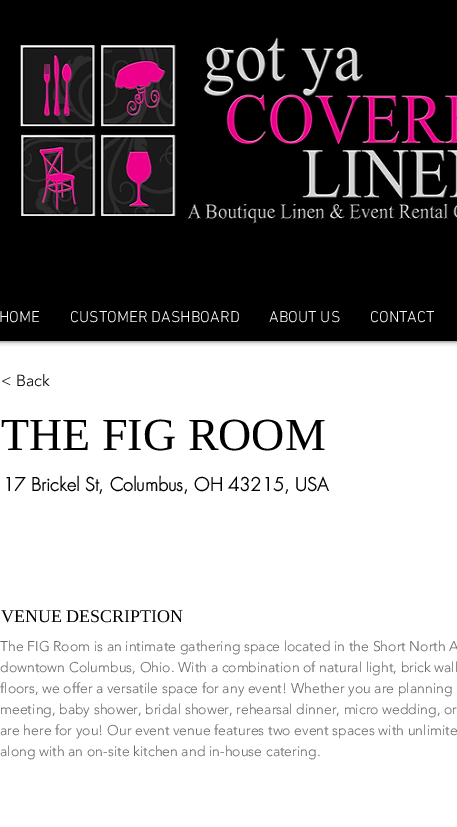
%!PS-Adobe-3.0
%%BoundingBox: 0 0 457 827
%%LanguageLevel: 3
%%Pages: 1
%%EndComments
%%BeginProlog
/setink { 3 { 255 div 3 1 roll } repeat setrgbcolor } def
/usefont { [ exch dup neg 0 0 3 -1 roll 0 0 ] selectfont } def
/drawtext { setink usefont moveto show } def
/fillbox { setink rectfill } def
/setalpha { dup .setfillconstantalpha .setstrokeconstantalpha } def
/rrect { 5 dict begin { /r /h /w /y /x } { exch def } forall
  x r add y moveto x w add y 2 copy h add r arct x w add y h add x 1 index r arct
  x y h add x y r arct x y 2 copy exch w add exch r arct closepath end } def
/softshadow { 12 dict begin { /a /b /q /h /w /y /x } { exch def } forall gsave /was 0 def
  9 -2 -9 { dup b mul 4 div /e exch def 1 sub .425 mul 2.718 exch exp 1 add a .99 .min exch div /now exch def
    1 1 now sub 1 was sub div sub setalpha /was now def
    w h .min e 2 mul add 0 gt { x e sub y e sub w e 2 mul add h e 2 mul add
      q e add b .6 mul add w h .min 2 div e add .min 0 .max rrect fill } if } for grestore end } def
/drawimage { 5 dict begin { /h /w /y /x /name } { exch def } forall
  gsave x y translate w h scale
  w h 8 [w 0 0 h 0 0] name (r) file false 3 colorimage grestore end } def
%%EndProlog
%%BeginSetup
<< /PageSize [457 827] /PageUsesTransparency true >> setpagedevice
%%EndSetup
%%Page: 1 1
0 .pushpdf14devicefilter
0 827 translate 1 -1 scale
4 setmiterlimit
0 0 457 827 255 255 255 fillbox
0 0 0 setink
0 0 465 341 0 2.5 0.7 softshadow
0 0 457 341 0 0 0 fillbox
(assets/img1.rgb) 20 37 437 187 drawimage
(HOME) -1 322 /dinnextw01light-Light 16 255 255 255 drawtext
(CUSTOMER DASHBOARD) 70 322 /dinnextw01light-Light 16 255 255 255 drawtext
(ABOUT US) 269 322 /dinnextw01light-Light 16 255 255 255 drawtext
(CONTACT) 370 322 /dinnextw01light-Light 16 255 255 255 drawtext
(< Back) 1 386 /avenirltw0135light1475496-Light 16 0 0 0 drawtext
(THE FIG ROOM) 1 450 /LiberationSerif-Regular 46 0 0 0 drawtext
(17 Brickel St, Columbus, OH 43215, USA) 3 491 /futura-Bold 18 0 0 0 drawtext
(VENUE DESCRIPTION) 1 622 /LiberationSerif-Regular 18 0 0 0 drawtext
(The FIG Room is an intimate gathering space located in the Short North A) 0 651 /avenirltw0135light1475496-Light 14 102 102 102 drawtext
(downtown Columbus, Ohio. With a combination of natural light, brick wall) 0 672 /avenirltw0135light1475496-Light 14 102 102 102 drawtext
(floors, we offer a versatile space for any event! Whether you are planning) 0 693 /avenirltw0135light1475496-Light 14 102 102 102 drawtext
(meeting, baby shower, bridal shower, rehearsal dinner, micro wedding, or) 0 714 /avenirltw0135light1475496-Light 14 102 102 102 drawtext
(are here for you! Our event venue features two event spaces with unlimite) 0 735 /avenirltw0135light1475496-Light 14 102 102 102 drawtext
(along with an on-site kitchen and in-house catering.) 0 756 /avenirltw0135light1475496-Light 14 102 102 102 drawtext
.poppdf14devicefilter showpage
%%EOF
